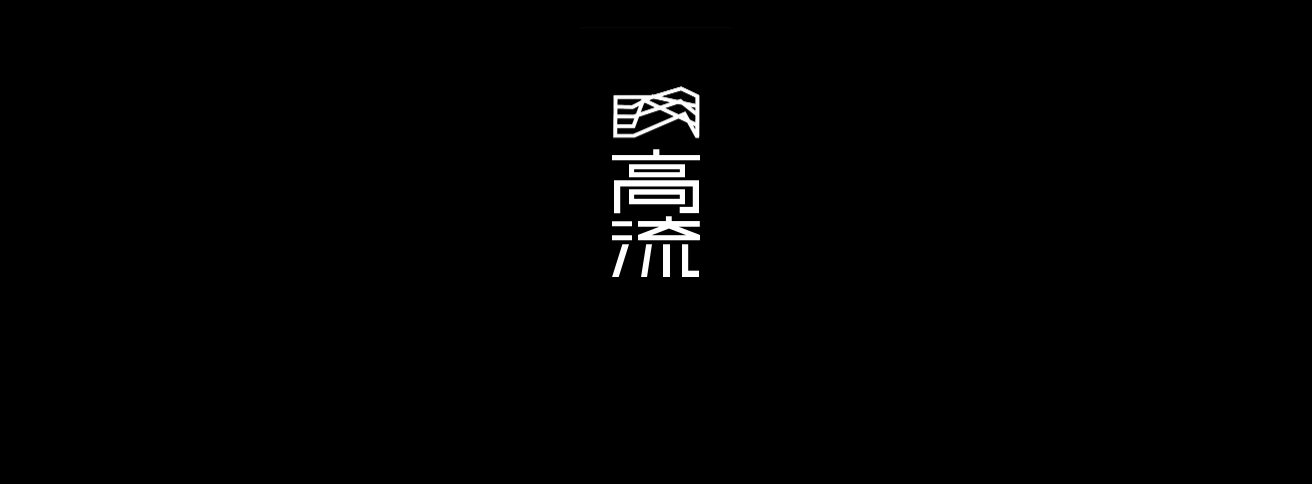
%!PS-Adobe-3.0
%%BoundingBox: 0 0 1312 484
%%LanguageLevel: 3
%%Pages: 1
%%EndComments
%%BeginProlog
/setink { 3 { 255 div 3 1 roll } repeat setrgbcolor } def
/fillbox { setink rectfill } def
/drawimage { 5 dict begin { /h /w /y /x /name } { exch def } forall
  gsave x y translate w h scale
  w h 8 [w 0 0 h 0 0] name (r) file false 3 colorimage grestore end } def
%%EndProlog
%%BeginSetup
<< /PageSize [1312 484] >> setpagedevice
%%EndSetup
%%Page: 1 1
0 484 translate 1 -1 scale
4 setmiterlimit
0 0 1312 484 255 255 255 fillbox
0 0 0 setink
0 0 moveto 0 484 lineto 1312 484 lineto 1312 0 lineto 0 0 lineto fill
(assets/img1.rgb) 581 27 150 112 drawimage
(assets/img2.rgb) 612 149 88 128 drawimage
showpage
%%EOF
